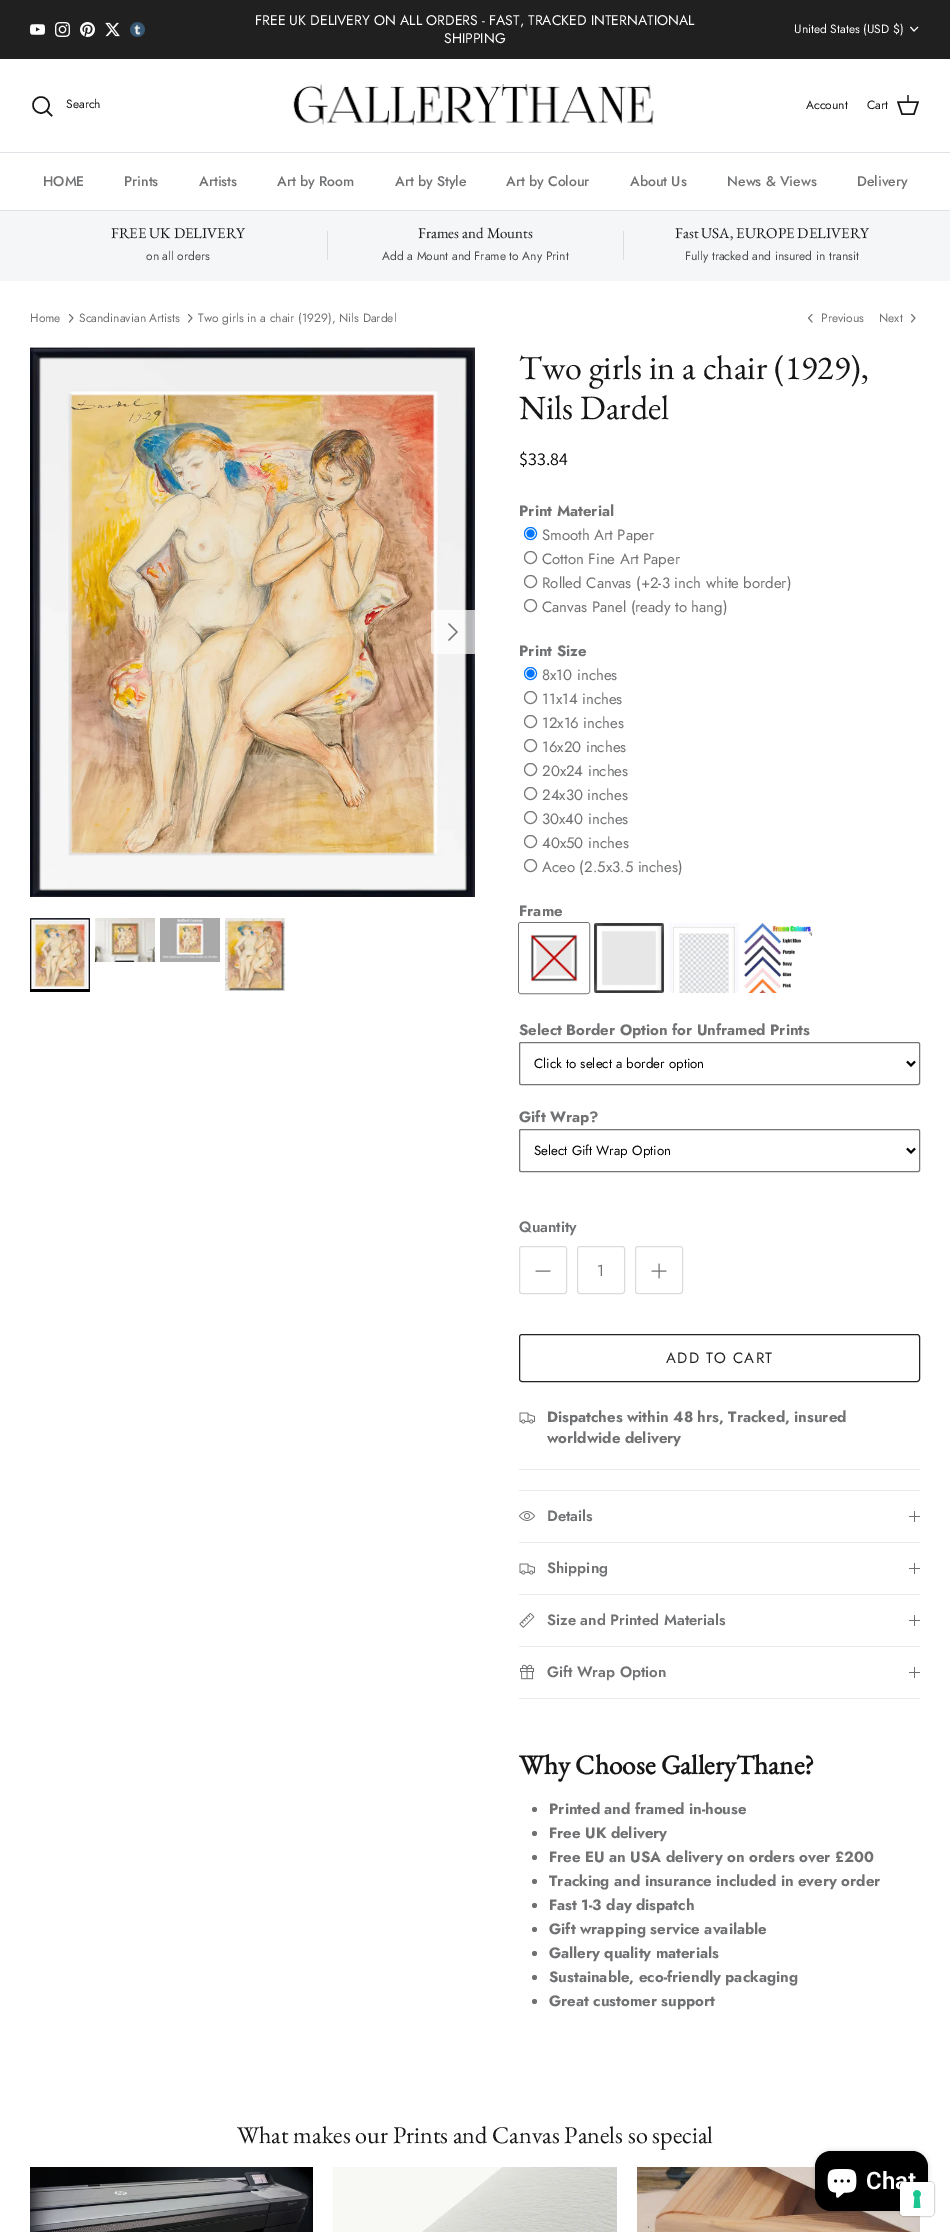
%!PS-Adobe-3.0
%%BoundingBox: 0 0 950 2232
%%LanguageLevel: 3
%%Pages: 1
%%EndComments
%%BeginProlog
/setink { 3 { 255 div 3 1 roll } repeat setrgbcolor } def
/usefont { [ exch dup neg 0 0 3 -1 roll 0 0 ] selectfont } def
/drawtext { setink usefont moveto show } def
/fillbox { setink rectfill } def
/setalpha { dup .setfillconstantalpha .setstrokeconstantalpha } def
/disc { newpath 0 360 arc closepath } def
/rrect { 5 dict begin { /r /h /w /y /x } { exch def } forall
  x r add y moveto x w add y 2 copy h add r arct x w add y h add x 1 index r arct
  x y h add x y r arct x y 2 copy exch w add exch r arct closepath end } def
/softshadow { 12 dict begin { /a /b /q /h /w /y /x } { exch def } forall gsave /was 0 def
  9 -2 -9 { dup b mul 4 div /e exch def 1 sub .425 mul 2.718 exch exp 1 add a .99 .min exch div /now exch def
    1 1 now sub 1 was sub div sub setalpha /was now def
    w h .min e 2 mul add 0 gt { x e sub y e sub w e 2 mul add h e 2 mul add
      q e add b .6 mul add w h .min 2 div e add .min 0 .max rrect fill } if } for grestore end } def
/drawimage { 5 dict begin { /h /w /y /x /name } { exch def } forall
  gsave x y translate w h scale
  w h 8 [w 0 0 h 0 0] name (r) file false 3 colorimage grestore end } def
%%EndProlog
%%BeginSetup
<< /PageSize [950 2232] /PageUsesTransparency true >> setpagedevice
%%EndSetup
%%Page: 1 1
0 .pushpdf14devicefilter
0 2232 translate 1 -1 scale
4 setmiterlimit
0 0 950 2232 255 255 255 fillbox
0 0 950 59 32 32 32 fillbox
(assets/img1.rgb) 30 24 15 11 drawimage
(assets/img2.rgb) 55 22 15 15 drawimage
(assets/img3.rgb) 80 22 15 15 drawimage
(assets/img4.rgb) 105 22 15 15 drawimage
(assets/img5.rgb) 130 21 15 16 drawimage
(FREE UK DELIVERY ON ALL ORDERS - FAST, TRACKED INTERNATIONAL) 255 25 /Jost-Regular 14 255 255 255 drawtext
(SHIPPING) 444 43 /Jost-Regular 14 255 255 255 drawtext
(United States \(USD $\)) 794 33 /Jost-Regular 12 255 255 255 drawtext
918 27 moveto 914 31 lineto 910.5 27 lineto stroke
0 152 950 1 223 227 232 fillbox
23 23 23 setink
1.5 setlinewidth
41 105 8 disc stroke
(Search) 66 108 /Jost-Regular 12 23 23 23 drawtext
2 setlinecap
47 111 moveto 51.5 115.5 lineto stroke
(assets/img6.rgb) 293 84 361 42 drawimage
(Account) 806 109 /Jost-Regular 12 23 23 23 drawtext
(Cart) 867 109 /Jost-Regular 12 23 23 23 drawtext
0 setlinecap
898 102 moveto 918 102 lineto 914 114 lineto 902 114 lineto closepath stroke
0.75 setalpha
907 95 2 8 23 23 23 fillbox
1 setalpha
0 210 950 1 223 227 232 fillbox
(HOME) 43 186 /Jost-Medium 14 112 113 115 drawtext
(Prints) 124 186 /Jost-Medium 14 112 113 115 drawtext
(Artists) 199 186 /Jost-Medium 14 112 113 115 drawtext
(Art by Room) 277 186 /Jost-Medium 14 112 113 115 drawtext
(Art by Style) 395 186 /Jost-Medium 14 112 113 115 drawtext
(Art by Colour) 506 186 /Jost-Medium 14 112 113 115 drawtext
(About Us) 630 186 /Jost-Medium 14 112 113 115 drawtext
(News & Views) 727 186 /Jost-Medium 14 112 113 115 drawtext
(Delivery) 857 186 /Jost-Medium 14 112 113 115 drawtext
0 211 950 70 244 246 248 fillbox
(FREE UK DELIVERY) 111 238 /EBGaramond-Regular 15 23 23 23 drawtext
(on all orders) 146 260 /Jost-Regular 12 76 76 75 drawtext
327 231 1 29 219 221 222 fillbox
(Frames and Mounts) 418 238 /EBGaramond-Regular 15 23 23 23 drawtext
(Add a Mount and Frame to Any Print) 382 260 /Jost-Regular 12 76 76 75 drawtext
623 231 1 29 219 221 222 fillbox
(Fast USA, EUROPE DELIVERY) 675 238 /EBGaramond-Regular 15 23 23 23 drawtext
(Fully tracked and insured in transit) 685 260 /Jost-Regular 12 76 76 75 drawtext
(Home) 30 322 /Jost-Regular 12 112 113 115 drawtext
0.9 setlinewidth
1 setlinecap
1 setlinejoin
69.5 322 moveto 73 318 lineto 69.5 314.5 lineto stroke
(Scandinavian Artists) 79 322 /Jost-Regular 12 112 113 115 drawtext
188.5 322 moveto 192 318 lineto 188.5 314.5 lineto stroke
(Two girls in a chair \(1929\), Nils Dardel) 198 322 /Jost-Regular 12 112 113 115 drawtext
812 322 moveto 808.5 318 lineto 812 314.5 lineto stroke
(Previous) 821 322 /Jost-Regular 12 112 113 115 drawtext
(Next) 879 322 /Jost-Regular 12 112 113 115 drawtext
911.5 322 moveto 915 318 lineto 911.5 314.5 lineto stroke
(assets/img7.rgb) 30 347 445 550 drawimage
0.7 setalpha
255 255 255 setink
434 610 moveto 475 610 lineto 475 654 lineto 434 654 lineto 432.5 654 431 652.5 431 651 curveto 431 613 lineto 431 611.5 432.5 610 434 610 curveto closepath fill
1 setalpha
112 113 115 setink
1.3 setlinewidth
449 640 moveto 457 632 lineto 449 624 lineto stroke
(assets/img8.rgb) 30 918 60 71 drawimage
30 989 60 3 0 0 0 fillbox
(assets/img9.rgb) 95 918 60 44 drawimage
(assets/img10.rgb) 160 918 60 44 drawimage
(assets/img11.rgb) 225 918 60 73 drawimage
(Two girls in a chair \(1929\),) 519 379 /EBGaramond-Regular 34 23 23 23 drawtext
(Nils Dardel) 519 419 /EBGaramond-Regular 34 23 23 23 drawtext
($33.84) 519 465 /Assistant-Regular 18 0 0 0 drawtext
(Print Material) 519 516 /Jost-Bold 15 112 113 115 drawtext
0 117 255 setink
1 setlinewidth
0 setlinecap
0 setlinejoin
530.5 533.5 6 disc stroke
530.5 533.5 4 disc fill
(Smooth Art Paper) 542 540 /Jost-Regular 15 112 113 115 drawtext
118 118 118 setink
530.5 557.5 6 disc stroke
(Cotton Fine Art Paper) 542 564 /Jost-Regular 15 112 113 115 drawtext
118 118 118 setink
530.5 581.5 6 disc stroke
(Rolled Canvas \(+2-3 inch white border\)) 542 588 /Jost-Regular 15 112 113 115 drawtext
118 118 118 setink
530.5 605.5 6 disc stroke
(Canvas Panel \(ready to hang\)) 542 612 /Jost-Regular 15 112 113 115 drawtext
(Print Size) 519 656 /Jost-Bold 15 112 113 115 drawtext
0 117 255 setink
530.5 673.5 6 disc stroke
530.5 673.5 4 disc fill
(8x10 inches) 542 680 /Jost-Regular 15 112 113 115 drawtext
118 118 118 setink
530.5 697.5 6 disc stroke
(11x14 inches) 542 704 /Jost-Regular 15 112 113 115 drawtext
118 118 118 setink
530.5 721.5 6 disc stroke
(12x16 inches) 542 728 /Jost-Regular 15 112 113 115 drawtext
118 118 118 setink
530.5 745.5 6 disc stroke
(16x20 inches) 542 752 /Jost-Regular 15 112 113 115 drawtext
118 118 118 setink
530.5 769.5 6 disc stroke
(20x24 inches) 542 776 /Jost-Regular 15 112 113 115 drawtext
118 118 118 setink
530.5 793.5 6 disc stroke
(24x30 inches) 542 800 /Jost-Regular 15 112 113 115 drawtext
118 118 118 setink
530.5 817.5 6 disc stroke
(30x40 inches) 542 824 /Jost-Regular 15 112 113 115 drawtext
118 118 118 setink
530.5 841.5 6 disc stroke
(40x50 inches) 542 848 /Jost-Regular 15 112 113 115 drawtext
118 118 118 setink
530.5 865.5 6 disc stroke
(Aceo \(2.5x3.5 inches\)) 542 872 /Jost-Regular 15 112 113 115 drawtext
(Frame) 519 916 /Jost-Bold 15 112 113 115 drawtext
518.5 922.5 71 71 2.5 rrect stroke
(assets/img12.rgb) 530 934 48 48 drawimage
255 255 255 setink
519.5 923.5 69 69 1.5 rrect stroke
(assets/img13.rgb) 594 923 70 70 drawimage
(assets/img14.rgb) 669 923 70 70 drawimage
(assets/img15.rgb) 744 923 69 70 drawimage
(Select Border Option for Unframed Prints) 519 1035 /Jost-Bold 15 112 113 115 drawtext
118 118 118 setink
519.5 1042.5 400 42 1.5 rrect stroke
0 0 0 setink
2 setlinewidth
907 1061.5 moveto 911 1065.5 lineto 915 1061.5 lineto stroke
(Click to select a border option) 534 1068 /Jost-Regular 13.3 0 0 0 drawtext
(Gift Wrap?) 519 1122 /Jost-Bold 15 112 113 115 drawtext
118 118 118 setink
1 setlinewidth
519.5 1129.5 400 42 1.5 rrect stroke
0 0 0 setink
2 setlinewidth
907 1148.5 moveto 911 1152.5 lineto 915 1148.5 lineto stroke
(Select Gift Wrap Option) 534 1155 /Jost-Regular 13.3 0 0 0 drawtext
(Quantity) 519 1232 /Jost-SemiBold 15 112 113 115 drawtext
219 220 220 setink
1 setlinewidth
519.5 1246.5 47 47 2.5 rrect stroke
112 113 115 setink
1 setlinecap
1 setlinejoin
536 1271 moveto 550 1271 lineto stroke
219 220 220 setink
0 setlinecap
0 setlinejoin
577.5 1246.5 47 47 2.5 rrect stroke
(1) 597 1276 /Jost-Regular 16 112 113 115 drawtext
219 220 220 setink
635.5 1246.5 47 47 2.5 rrect stroke
112 113 115 setink
1 setlinecap
1 setlinejoin
659 1264 moveto 659 1278 lineto 652 1271 moveto 666 1271 lineto stroke
35 35 35 setink
0 setlinecap
0 setlinejoin
519.5 1334.5 400 47 2.5 rrect stroke
/Jost-Regular 15 usefont
666 1363 moveto 1.25 0 (ADD TO CART) ashow
(assets/img16.rgb) 519 1412 16 12 drawimage
(Dispatches within 48 hrs, Tracked, insured) 547 1422 /Jost-Bold 15 112 113 115 drawtext
(worldwide delivery) 547 1443 /Jost-Bold 15 112 113 115 drawtext
519 1469 401 1 235 235 235 fillbox
519 1490 401 1 234 234 234 fillbox
519 1542 401 1 234 234 234 fillbox
(assets/img17.rgb) 519 1511 16 10 drawimage
(Details) 547 1521 /Jost-SemiBold 15 112 113 115 drawtext
914 1511 1 11 112 113 115 fillbox
909 1516 11 1 112 113 115 fillbox
519 1594 401 1 234 234 234 fillbox
(assets/img16.rgb) 519 1563 16 12 drawimage
(Shipping) 547 1573 /Jost-SemiBold 15 112 113 115 drawtext
914 1563 1 11 112 113 115 fillbox
909 1568 11 1 112 113 115 fillbox
519 1646 401 1 234 234 234 fillbox
(assets/img18.rgb) 519 1613 16 15 drawimage
(Size and Printed Materials) 547 1625 /Jost-SemiBold 15 112 113 115 drawtext
914 1615 1 11 112 113 115 fillbox
909 1620 11 1 112 113 115 fillbox
519 1698 401 1 234 234 234 fillbox
(assets/img19.rgb) 520 1664 14 16 drawimage
(Gift Wrap Option) 547 1677 /Jost-SemiBold 15 112 113 115 drawtext
914 1667 1 11 112 113 115 fillbox
909 1672 11 1 112 113 115 fillbox
(Why Choose GalleryThane?) 519 1774 /EBGaramond-Bold 27.25 23 23 23 drawtext
112 113 115 setink
534.5 1809.5 2.5 disc fill
(Printed and framed in-house) 549 1814 /Jost-Bold 15 112 113 115 drawtext
534.5 1833.5 2.5 disc fill
(Free UK delivery) 549 1838 /Jost-Bold 15 112 113 115 drawtext
534.5 1857.5 2.5 disc fill
(Free EU an USA delivery on orders over £200) 549 1862 /Jost-Bold 15 112 113 115 drawtext
534.5 1881.5 2.5 disc fill
(Tracking and insurance included in every order) 549 1886 /Jost-Bold 15 112 113 115 drawtext
534.5 1905.5 2.5 disc fill
(Fast 1-3 day dispatch) 549 1910 /Jost-Bold 15 112 113 115 drawtext
534.5 1929.5 2.5 disc fill
(Gift wrapping service available) 549 1934 /Jost-Bold 15 112 113 115 drawtext
534.5 1953.5 2.5 disc fill
(Gallery quality materials) 549 1958 /Jost-Bold 15 112 113 115 drawtext
534.5 1977.5 2.5 disc fill
(Sustainable, eco-friendly packaging) 549 1982 /Jost-Bold 15 112 113 115 drawtext
534.5 2001.5 2.5 disc fill
(Great customer support) 549 2006 /Jost-Bold 15 112 113 115 drawtext
(What makes our Prints and Canvas Panels so special) 237 2143 /EBGaramond-Regular 24.1 23 23 23 drawtext
(assets/img20.rgb) 30 2167 283 65 drawimage
(assets/img21.rgb) 333 2167 284 65 drawimage
(assets/img22.rgb) 637 2167 283 65 drawimage
0 0 0 setink
815 2151 113 60 16 2.5 0.15 softshadow
815 2151 113 60 16 rrect fill
(assets/img23.rgb) 827 2169 30 29 drawimage
(Chat) 866 2189 /Roboto-SemiBold 24 255 255 255 drawtext
0.15 setalpha
0 0 0 setink
899.5 2181.5 35 35 4.5 rrect stroke
1 setalpha
255 255 255 setink
900 2182 34 34 4 rrect fill
(assets/img24.rgb) 913 2190 8 18 drawimage
.poppdf14devicefilter showpage
%%EOF
